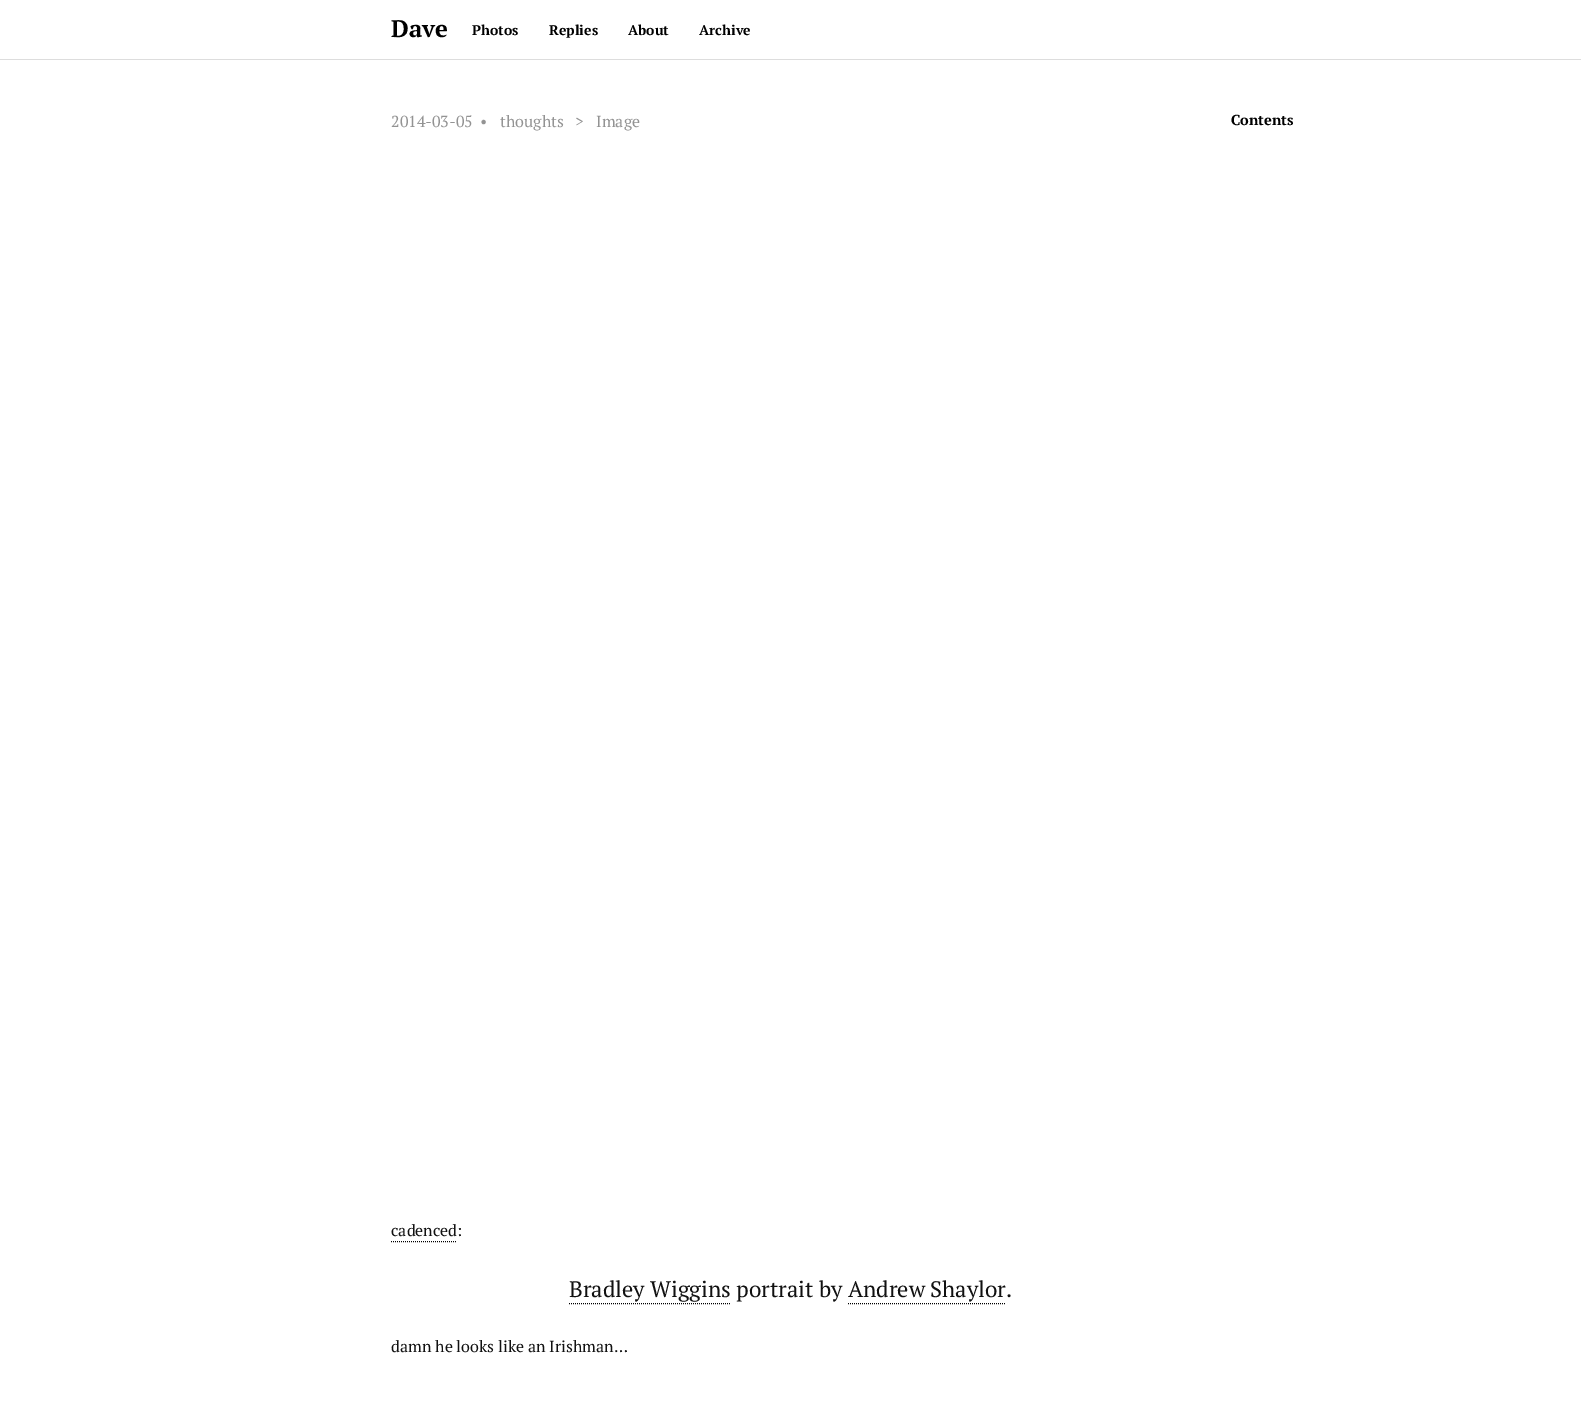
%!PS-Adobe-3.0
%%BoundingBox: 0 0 1581 1416
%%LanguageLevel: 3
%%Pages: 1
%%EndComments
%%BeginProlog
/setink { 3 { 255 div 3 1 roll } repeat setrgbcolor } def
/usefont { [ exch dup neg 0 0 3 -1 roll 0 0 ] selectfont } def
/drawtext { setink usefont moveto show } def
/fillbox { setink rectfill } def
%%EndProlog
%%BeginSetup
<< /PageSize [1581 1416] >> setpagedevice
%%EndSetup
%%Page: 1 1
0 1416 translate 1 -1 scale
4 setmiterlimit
0 0 1581 1416 255 255 255 fillbox
0 59 1581 1 221 221 221 fillbox
(Dave) 391 37 /PTSerif-Bold 24 0 0 0 drawtext
(Photos) 472 35 /PTSerif-Bold 14 0 0 0 drawtext
(Replies) 549 35 /PTSerif-Bold 14 0 0 0 drawtext
(About) 628 35 /PTSerif-Bold 14 0 0 0 drawtext
(Archive) 699 35 /PTSerif-Bold 14 0 0 0 drawtext
(2014-03-05) 391 127 /PTSerif-Regular 16 147 147 147 drawtext
(•) 480 127 /PTSerif-Regular 16 147 147 147 drawtext
(thoughts) 500 127 /PTSerif-Regular 16 147 147 147 drawtext
(>) 575 127 /PTSerif-Regular 16 147 147 147 drawtext
(Image) 596 127 /PTSerif-Regular 16 147 147 147 drawtext
(Contents) 1231 125 /PTSerif-Bold 14.5 0 0 0 drawtext
(cadenced:) 391 1236 /PTSerif-Regular 16 17 17 17 drawtext
0 0 0 setink
[1 1] 0 setdash
391 1241.5 moveto 457 1241.5 lineto stroke
(Bradley Wiggins portrait by Andrew Shaylor.) 569 1297 /PTSerif-Regular 22.4 17 17 17 drawtext
0 0 0 setink
569 1303.5 moveto 731 1303.5 lineto stroke
848 1303.5 moveto 1006 1303.5 lineto stroke
(damn he looks like an Irishman…) 391 1352 /PTSerif-Regular 16 17 17 17 drawtext
showpage
%%EOF
